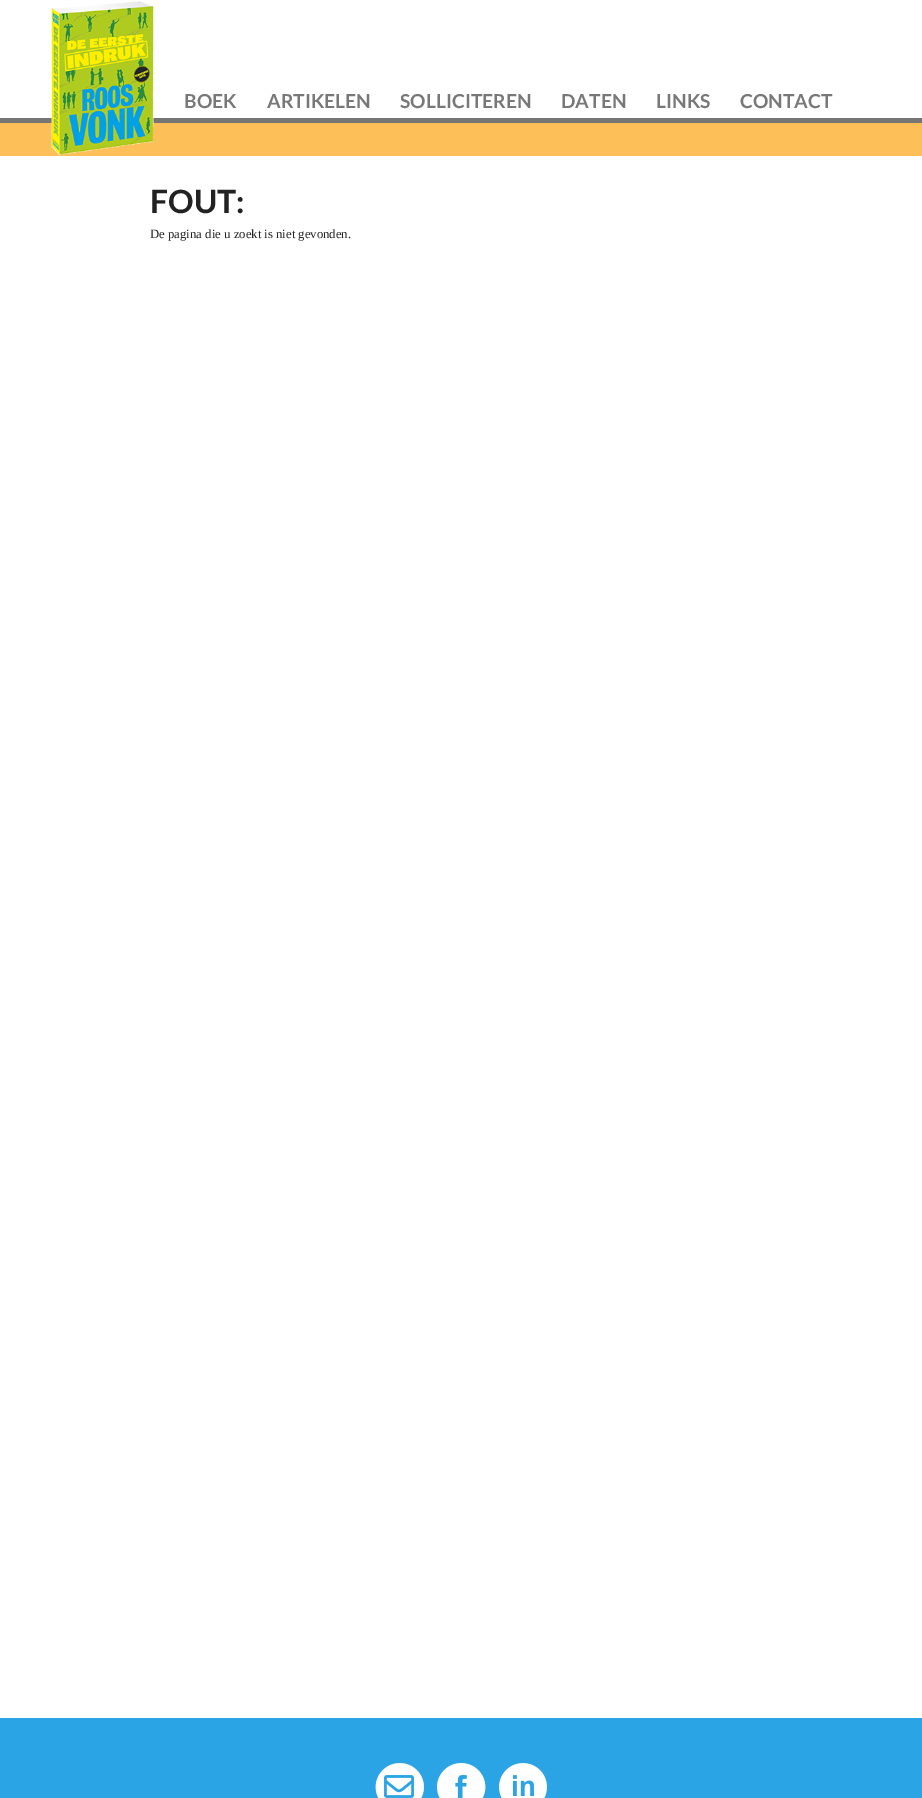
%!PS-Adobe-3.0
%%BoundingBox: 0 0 922 1798
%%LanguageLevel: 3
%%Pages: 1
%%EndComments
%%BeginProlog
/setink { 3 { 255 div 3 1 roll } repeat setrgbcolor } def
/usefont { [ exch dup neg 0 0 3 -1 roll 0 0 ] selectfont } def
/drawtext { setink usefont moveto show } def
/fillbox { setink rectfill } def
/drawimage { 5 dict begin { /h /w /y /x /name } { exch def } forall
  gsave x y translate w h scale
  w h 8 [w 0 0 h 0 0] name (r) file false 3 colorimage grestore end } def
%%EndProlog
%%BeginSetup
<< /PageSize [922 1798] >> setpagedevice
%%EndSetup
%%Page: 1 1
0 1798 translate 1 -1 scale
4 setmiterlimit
0 0 922 1798 255 255 255 fillbox
(assets/img1.rgb) 0 118 922 38 drawimage
(assets/img2.rgb) 51 1 103 154 drawimage
(BOEK) 184 108 /Lato-Bold 19.25 120 120 120 drawtext
(ARTIKELEN) 267 108 /Lato-Bold 19.25 120 120 120 drawtext
(SOLLICITEREN) 400 108 /Lato-Bold 19.25 120 120 120 drawtext
(DATEN) 561 108 /Lato-Bold 19.25 120 120 120 drawtext
(LINKS) 656 108 /Lato-Bold 19.25 120 120 120 drawtext
(CONTACT) 740 108 /Lato-Bold 19.25 120 120 120 drawtext
(FOUT:) 150 213 /Lato-Bold 32 34 34 34 drawtext
(De pagina die u zoekt is niet gevonden.) 150 238 /LiberationSerif-Regular 12.75 34 34 34 drawtext
0 1718 922 80 42 164 228 fillbox
(assets/img3.rgb) 375 1763 49 35 drawimage
(assets/img4.rgb) 437 1763 49 35 drawimage
(assets/img5.rgb) 499 1763 48 35 drawimage
showpage
%%EOF
